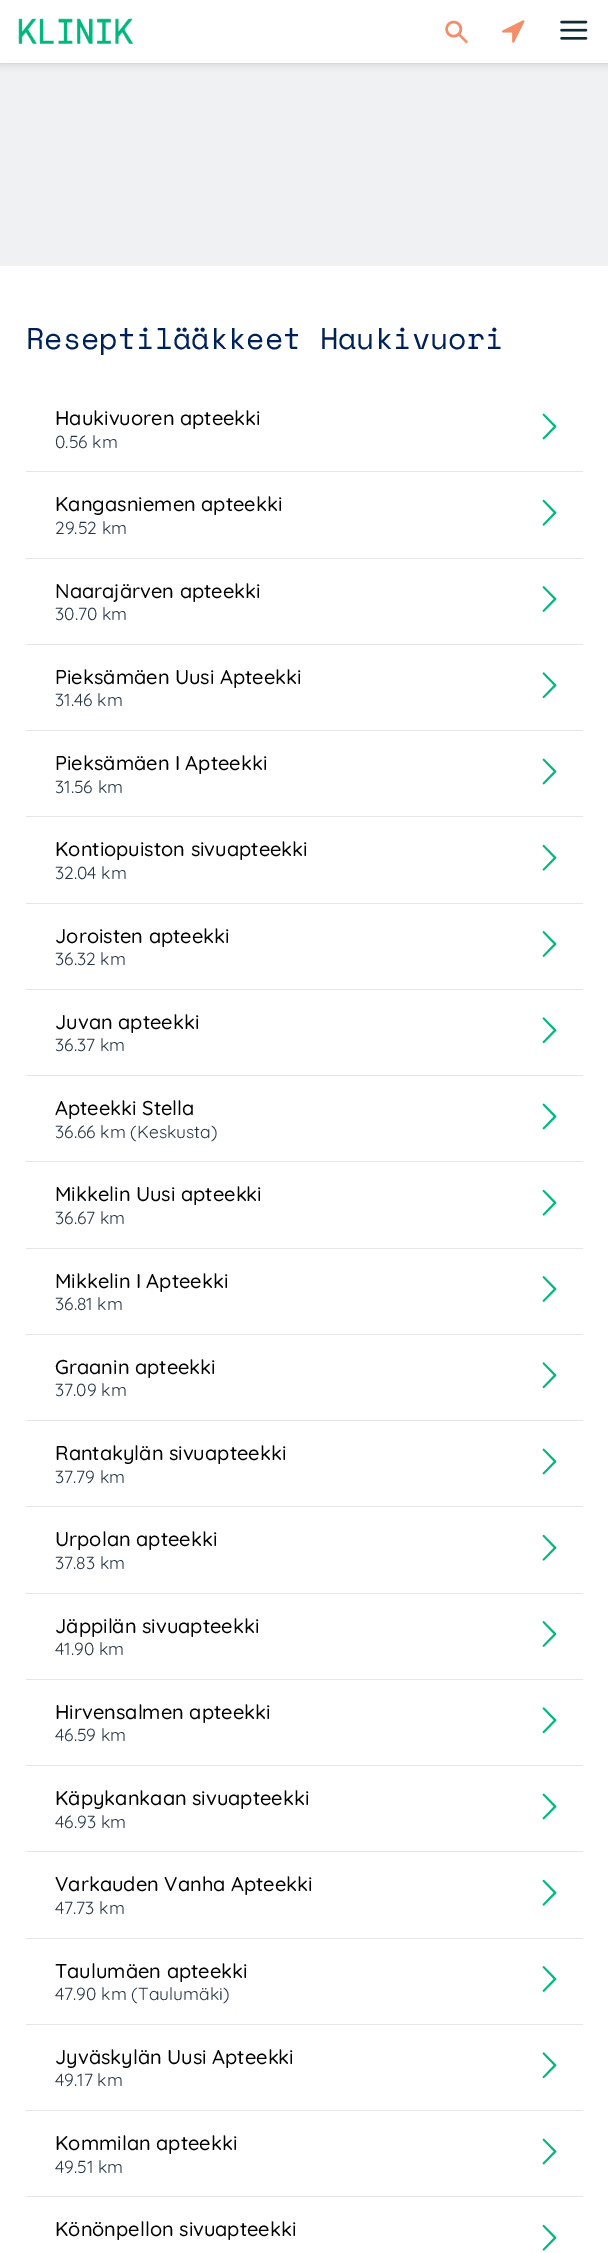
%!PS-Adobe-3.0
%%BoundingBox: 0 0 608 2253
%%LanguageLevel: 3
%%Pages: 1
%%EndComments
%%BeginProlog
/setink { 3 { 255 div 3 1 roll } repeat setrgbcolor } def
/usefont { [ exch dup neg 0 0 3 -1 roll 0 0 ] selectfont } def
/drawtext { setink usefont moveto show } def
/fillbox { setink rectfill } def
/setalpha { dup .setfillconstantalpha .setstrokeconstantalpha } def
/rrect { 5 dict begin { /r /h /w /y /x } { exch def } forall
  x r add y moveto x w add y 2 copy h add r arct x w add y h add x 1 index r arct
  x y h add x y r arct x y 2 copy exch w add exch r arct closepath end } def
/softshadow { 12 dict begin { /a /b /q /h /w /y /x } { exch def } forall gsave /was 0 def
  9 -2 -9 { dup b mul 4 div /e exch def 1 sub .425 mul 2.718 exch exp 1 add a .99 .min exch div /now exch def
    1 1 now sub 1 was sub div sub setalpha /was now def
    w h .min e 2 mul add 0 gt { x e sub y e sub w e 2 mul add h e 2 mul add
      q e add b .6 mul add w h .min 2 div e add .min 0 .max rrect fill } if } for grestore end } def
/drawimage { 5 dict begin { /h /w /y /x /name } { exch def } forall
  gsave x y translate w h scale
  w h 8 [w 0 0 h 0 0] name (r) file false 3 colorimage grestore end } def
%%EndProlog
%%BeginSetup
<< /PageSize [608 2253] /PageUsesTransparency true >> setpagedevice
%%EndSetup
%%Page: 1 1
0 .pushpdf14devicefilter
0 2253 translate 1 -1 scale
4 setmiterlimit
0 0 608 2253 239 241 242 fillbox
0 0 0 setink
0 0 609 63 0 4 0.2 softshadow
0 0 608 63 255 255 255 fillbox
(assets/img1.rgb) 18 18 115 26 drawimage
(assets/img2.rgb) 445 20 23 24 drawimage
(assets/img3.rgb) 502 20 23 23 drawimage
(assets/img4.rgb) 560 20 28 20 drawimage
0 266 608 1987 255 255 255 fillbox
(Reseptilääkkeet Haukivuori) 26 349 /SpaceMono-Regular 30 0 33 88 drawtext
26 471 557 1 230 230 230 fillbox
(Haukivuoren apteekki) 55 425 /Quicksand-Medium 20 0 0 0 drawtext
(0.56 km) 55 448 /Quicksand-Regular 17.5 37 55 70 drawtext
(assets/img5.rgb) 542 413 15 27 drawimage
26 558 557 1 230 230 230 fillbox
(Kangasniemen apteekki) 55 511 /Quicksand-Medium 20 0 0 0 drawtext
(29.52 km) 55 534 /Quicksand-Regular 17.5 37 55 70 drawtext
(assets/img6.rgb) 542 499 15 27 drawimage
26 644 557 1 230 230 230 fillbox
(Naarajärven apteekki) 55 598 /Quicksand-Medium 20 0 0 0 drawtext
(30.70 km) 55 620 /Quicksand-Regular 17.5 37 55 70 drawtext
(assets/img7.rgb) 542 586 15 26 drawimage
26 730 557 1 230 230 230 fillbox
(Pieksämäen Uusi Apteekki) 55 684 /Quicksand-Medium 20 0 0 0 drawtext
(31.46 km) 55 706 /Quicksand-Regular 17.5 37 55 70 drawtext
(assets/img8.rgb) 542 672 15 27 drawimage
26 816 557 1 230 230 230 fillbox
(Pieksämäen I Apteekki) 55 770 /Quicksand-Medium 20 0 0 0 drawtext
(31.56 km) 55 793 /Quicksand-Regular 17.5 37 55 70 drawtext
(assets/img5.rgb) 542 758 15 27 drawimage
26 903 557 1 230 230 230 fillbox
(Kontiopuiston sivuapteekki) 55 856 /Quicksand-Medium 20 0 0 0 drawtext
(32.04 km) 55 879 /Quicksand-Regular 17.5 37 55 70 drawtext
(assets/img6.rgb) 542 844 15 27 drawimage
26 989 557 1 230 230 230 fillbox
(Joroisten apteekki) 55 943 /Quicksand-Medium 20 0 0 0 drawtext
(36.32 km) 55 965 /Quicksand-Regular 17.5 37 55 70 drawtext
(assets/img7.rgb) 542 931 15 26 drawimage
26 1075 557 1 230 230 230 fillbox
(Juvan apteekki) 55 1029 /Quicksand-Medium 20 0 0 0 drawtext
(36.37 km) 55 1051 /Quicksand-Regular 17.5 37 55 70 drawtext
(assets/img8.rgb) 542 1017 15 27 drawimage
26 1161 557 1 230 230 230 fillbox
(Apteekki Stella) 55 1115 /Quicksand-Medium 20 0 0 0 drawtext
(36.66 km \(Keskusta\)) 55 1138 /Quicksand-Regular 17.5 37 55 70 drawtext
(assets/img5.rgb) 542 1103 15 27 drawimage
26 1248 557 1 230 230 230 fillbox
(Mikkelin Uusi apteekki) 55 1201 /Quicksand-Medium 20 0 0 0 drawtext
(36.67 km) 55 1224 /Quicksand-Regular 17.5 37 55 70 drawtext
(assets/img6.rgb) 542 1189 15 27 drawimage
26 1334 557 1 230 230 230 fillbox
(Mikkelin I Apteekki) 55 1288 /Quicksand-Medium 20 0 0 0 drawtext
(36.81 km) 55 1310 /Quicksand-Regular 17.5 37 55 70 drawtext
(assets/img7.rgb) 542 1276 15 26 drawimage
26 1420 557 1 230 230 230 fillbox
(Graanin apteekki) 55 1374 /Quicksand-Medium 20 0 0 0 drawtext
(37.09 km) 55 1396 /Quicksand-Regular 17.5 37 55 70 drawtext
(assets/img8.rgb) 542 1362 15 27 drawimage
26 1506 557 1 230 230 230 fillbox
(Rantakylän sivuapteekki) 55 1460 /Quicksand-Medium 20 0 0 0 drawtext
(37.79 km) 55 1483 /Quicksand-Regular 17.5 37 55 70 drawtext
(assets/img5.rgb) 542 1448 15 27 drawimage
26 1593 557 1 230 230 230 fillbox
(Urpolan apteekki) 55 1546 /Quicksand-Medium 20 0 0 0 drawtext
(37.83 km) 55 1569 /Quicksand-Regular 17.5 37 55 70 drawtext
(assets/img6.rgb) 542 1534 15 27 drawimage
26 1679 557 1 230 230 230 fillbox
(Jäppilän sivuapteekki) 55 1633 /Quicksand-Medium 20 0 0 0 drawtext
(41.90 km) 55 1655 /Quicksand-Regular 17.5 37 55 70 drawtext
(assets/img7.rgb) 542 1621 15 26 drawimage
26 1765 557 1 230 230 230 fillbox
(Hirvensalmen apteekki) 55 1719 /Quicksand-Medium 20 0 0 0 drawtext
(46.59 km) 55 1741 /Quicksand-Regular 17.5 37 55 70 drawtext
(assets/img8.rgb) 542 1707 15 27 drawimage
26 1851 557 1 230 230 230 fillbox
(Käpykankaan sivuapteekki) 55 1805 /Quicksand-Medium 20 0 0 0 drawtext
(46.93 km) 55 1828 /Quicksand-Regular 17.5 37 55 70 drawtext
(assets/img5.rgb) 542 1793 15 27 drawimage
26 1938 557 1 230 230 230 fillbox
(Varkauden Vanha Apteekki) 55 1891 /Quicksand-Medium 20 0 0 0 drawtext
(47.73 km) 55 1914 /Quicksand-Regular 17.5 37 55 70 drawtext
(assets/img6.rgb) 542 1879 15 27 drawimage
26 2024 557 1 230 230 230 fillbox
(Taulumäen apteekki) 55 1978 /Quicksand-Medium 20 0 0 0 drawtext
(47.90 km \(Taulumäki\)) 55 2000 /Quicksand-Regular 17.5 37 55 70 drawtext
(assets/img7.rgb) 542 1966 15 26 drawimage
26 2110 557 1 230 230 230 fillbox
(Jyväskylän Uusi Apteekki) 55 2064 /Quicksand-Medium 20 0 0 0 drawtext
(49.17 km) 55 2086 /Quicksand-Regular 17.5 37 55 70 drawtext
(assets/img8.rgb) 542 2052 15 27 drawimage
26 2196 557 1 230 230 230 fillbox
(Kommilan apteekki) 55 2150 /Quicksand-Medium 20 0 0 0 drawtext
(49.51 km) 55 2173 /Quicksand-Regular 17.5 37 55 70 drawtext
(assets/img5.rgb) 542 2138 15 27 drawimage
(Könönpellon sivuapteekki) 55 2236 /Quicksand-Medium 20 0 0 0 drawtext
(assets/img6.rgb) 542 2224 15 27 drawimage
.poppdf14devicefilter showpage
%%EOF
